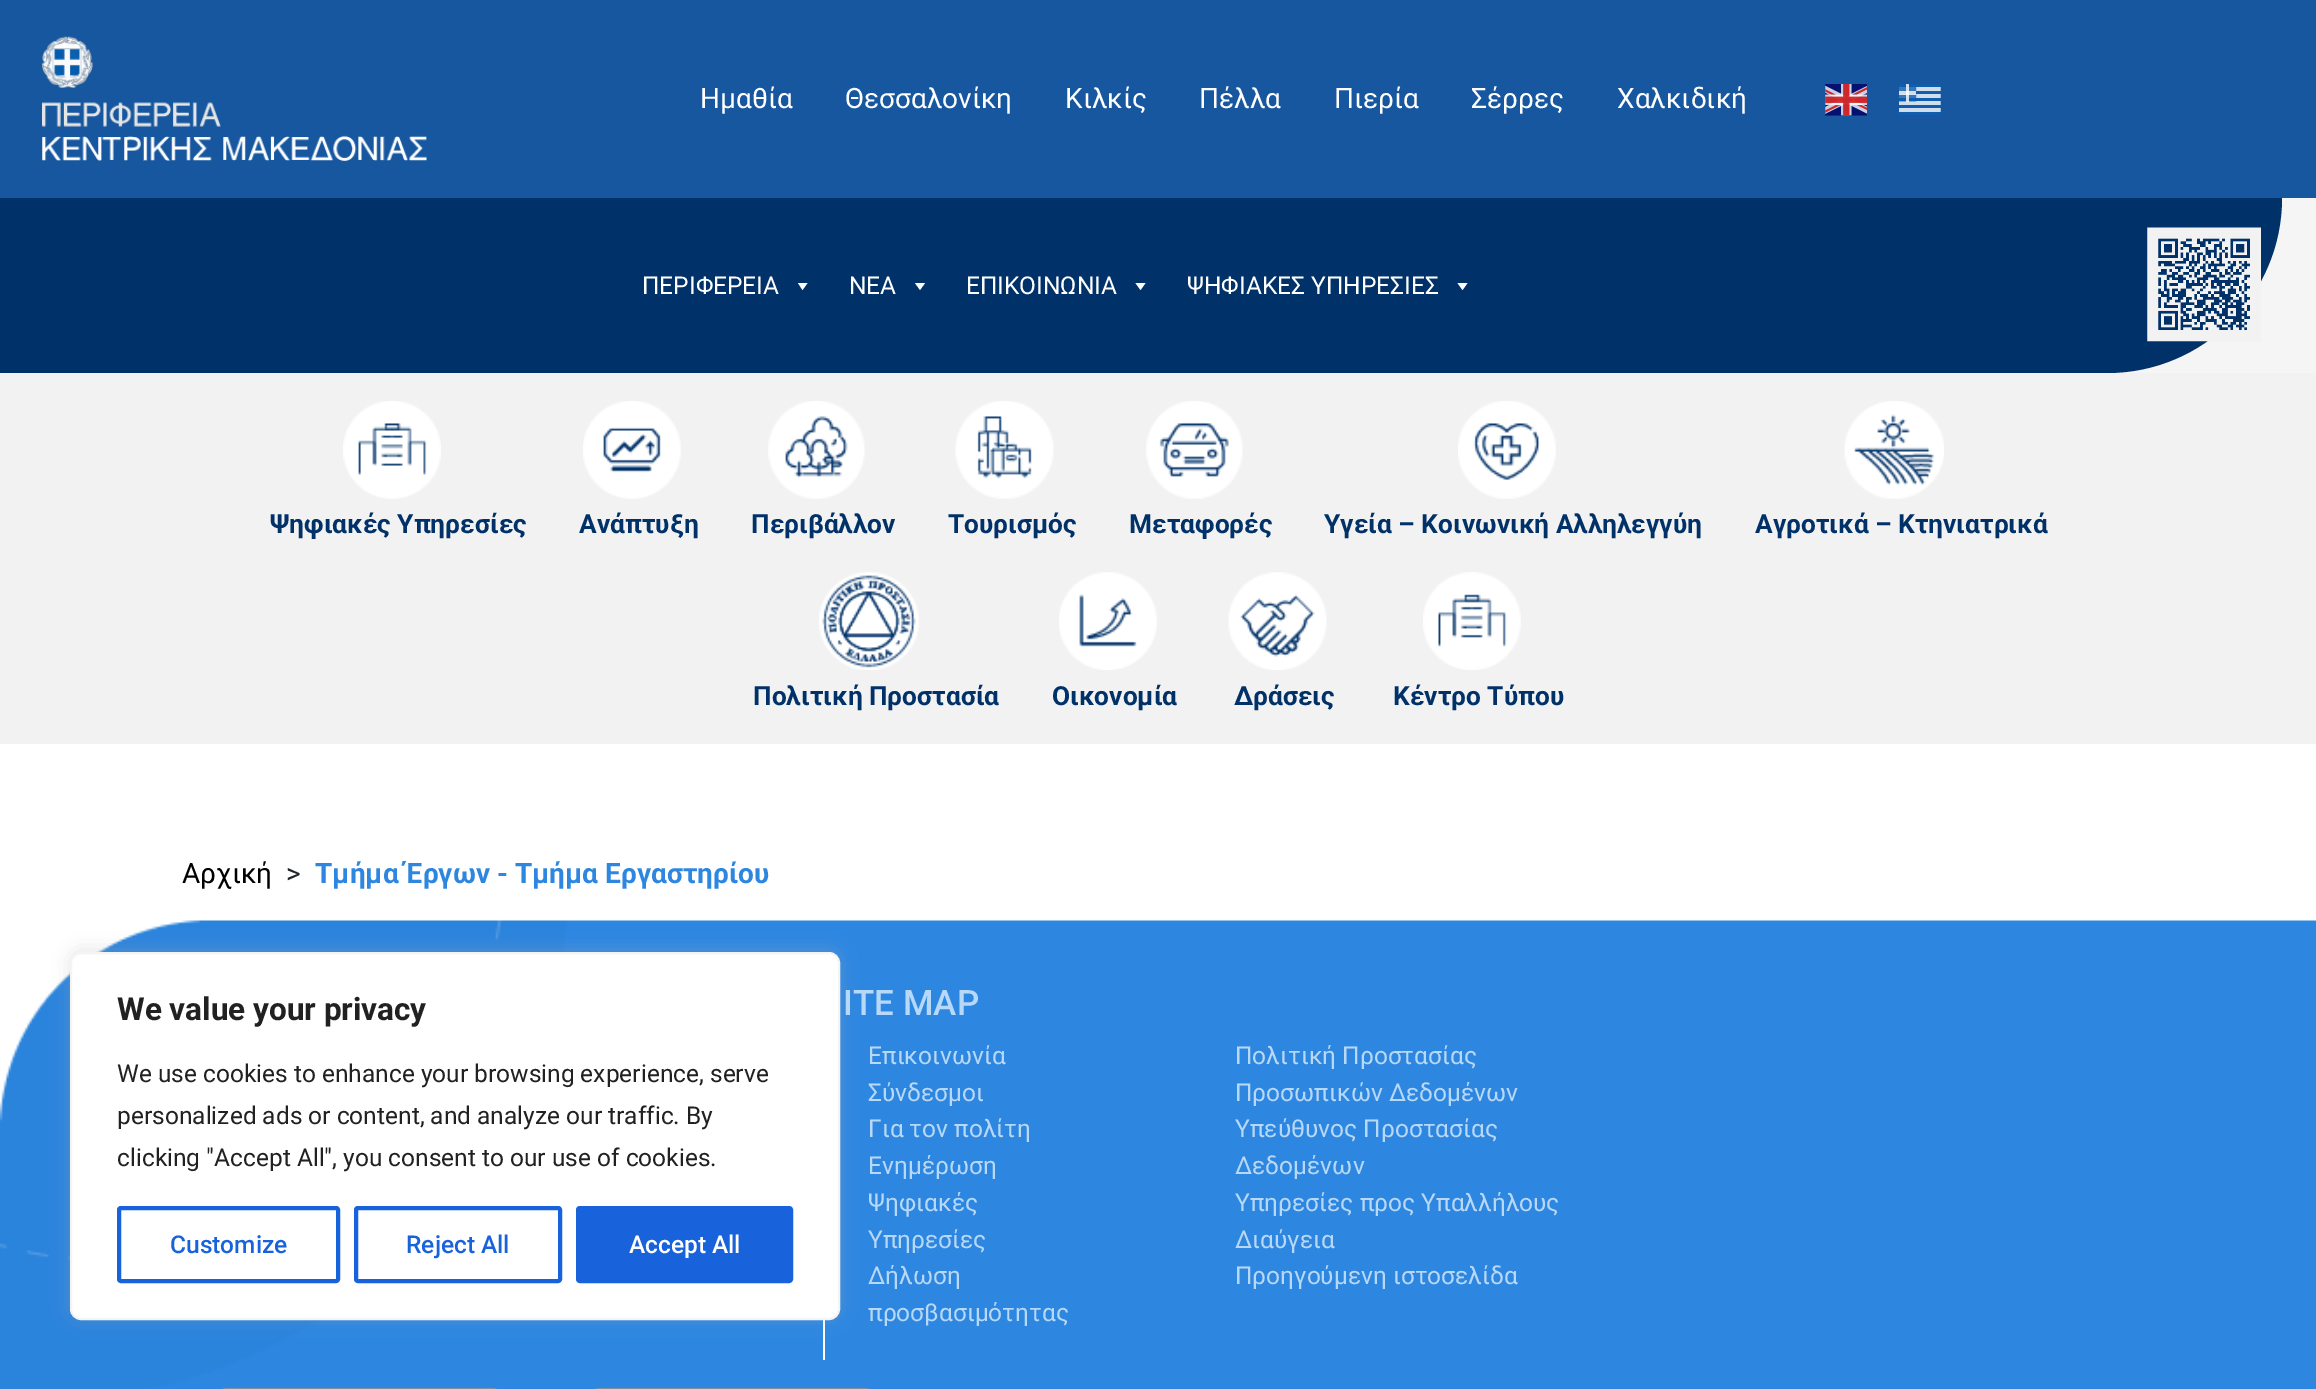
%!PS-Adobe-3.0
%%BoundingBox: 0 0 2316 1389
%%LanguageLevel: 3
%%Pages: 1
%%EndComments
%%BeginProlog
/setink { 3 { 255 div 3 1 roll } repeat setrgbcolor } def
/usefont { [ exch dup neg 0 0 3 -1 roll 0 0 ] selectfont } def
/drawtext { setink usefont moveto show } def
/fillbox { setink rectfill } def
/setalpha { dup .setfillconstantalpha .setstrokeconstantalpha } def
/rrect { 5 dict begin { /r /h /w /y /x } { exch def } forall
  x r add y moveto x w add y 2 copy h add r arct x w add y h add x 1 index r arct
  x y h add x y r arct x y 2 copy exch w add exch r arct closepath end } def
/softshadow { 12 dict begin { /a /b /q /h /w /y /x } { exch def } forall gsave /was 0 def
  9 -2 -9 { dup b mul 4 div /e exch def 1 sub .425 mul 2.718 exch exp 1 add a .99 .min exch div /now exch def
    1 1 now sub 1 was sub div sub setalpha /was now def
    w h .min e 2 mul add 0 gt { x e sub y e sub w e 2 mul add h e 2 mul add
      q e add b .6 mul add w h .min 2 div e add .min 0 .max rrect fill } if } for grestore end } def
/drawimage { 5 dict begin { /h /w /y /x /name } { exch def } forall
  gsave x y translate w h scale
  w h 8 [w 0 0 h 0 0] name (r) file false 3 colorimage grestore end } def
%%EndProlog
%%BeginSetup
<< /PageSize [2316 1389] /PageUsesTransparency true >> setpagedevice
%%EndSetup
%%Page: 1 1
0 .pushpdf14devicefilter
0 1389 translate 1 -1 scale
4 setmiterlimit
0 0 2316 1389 255 255 255 fillbox
2108 198 208 175 245 245 245 fillbox
0 0 2316 198 22 87 159 fillbox
(assets/img1.rgb) 42 36 385 125 drawimage
(Ημαθία) 700 108 /Roboto-Regular 28 255 255 255 drawtext
(Θεσσαλονίκη) 845 108 /Roboto-Regular 28 255 255 255 drawtext
(Κιλκίς) 1065 108 /Roboto-Regular 28 255 255 255 drawtext
(Πέλλα) 1199 108 /Roboto-Regular 28 255 255 255 drawtext
(Πιερία) 1334 108 /Roboto-Regular 28 255 255 255 drawtext
(Σέρρες) 1471 108 /Roboto-Regular 28 255 255 255 drawtext
(Xαλκιδική) 1617 108 /Roboto-Regular 28 255 255 255 drawtext
(assets/img2.rgb) 1825 84 42 32 drawimage
(assets/img3.rgb) 1899 84 42 31 drawimage
0 49 104 setink
0 198 moveto 2282 198 lineto 2282 294.5 2203.5 373 2107 373 curveto 0 373 lineto closepath fill
(ΠΕΡΙΦΕΡΕΙΑ) 642 294 /Roboto-Regular 24.5 255 255 255 drawtext
807.5 283 moveto 802.5 290 lineto 798 283 lineto closepath fill
(ΝΕΑ) 849 294 /Roboto-Regular 24.5 255 255 255 drawtext
925 283 moveto 920 290 lineto 915 283 lineto closepath fill
(ΕΠΙΚΟΙΝΩΝΙΑ) 966 294 /Roboto-Regular 24.5 255 255 255 drawtext
1145.5 283 moveto 1140.5 290 lineto 1135.5 283 lineto closepath fill
(ΨΗΦΙΑΚΕΣ ΥΠΗΡΕΣΙΕΣ) 1187 294 /Roboto-Regular 24.5 255 255 255 drawtext
1467.5 283 moveto 1462.5 290 lineto 1457.5 283 lineto closepath fill
(assets/img4.rgb) 2147 227 114 115 drawimage
0 373 2316 371 242 242 242 fillbox
(assets/img5.rgb) 343 401 98 98 drawimage
(Ψηφιακές Υπηρεσίες) 270 533 /Roboto-Bold 26.25 0 49 104 drawtext
(assets/img6.rgb) 583 401 98 98 drawimage
(Ανάπτυξη) 579 533 /Roboto-Bold 26.25 0 49 104 drawtext
(assets/img7.rgb) 768 401 97 98 drawimage
(Περιβάλλον) 751 533 /Roboto-Bold 26.25 0 49 104 drawtext
(assets/img8.rgb) 955 401 99 98 drawimage
(Τουρισμός) 948 533 /Roboto-Bold 26.25 0 49 104 drawtext
(assets/img9.rgb) 1146 401 97 98 drawimage
(Μεταφορές) 1129 533 /Roboto-Bold 26.25 0 49 104 drawtext
(assets/img10.rgb) 1458 401 98 98 drawimage
(Υγεία – Κοινωνική Αλληλεγγύη) 1324 533 /Roboto-Bold 26.25 0 49 104 drawtext
(assets/img11.rgb) 1844 401 100 98 drawimage
(Αγροτικά – Kτηνιατρικά) 1755 533 /Roboto-Bold 26.25 0 49 104 drawtext
(assets/img12.rgb) 819 572 100 98 drawimage
(Πολιτική Προστασία) 753 705 /Roboto-Bold 26.25 0 49 104 drawtext
(assets/img13.rgb) 1059 572 98 98 drawimage
(Οικονομία) 1052 705 /Roboto-Bold 26.25 0 49 104 drawtext
(assets/img14.rgb) 1228 572 99 98 drawimage
(Δράσεις) 1234 705 /Roboto-Bold 26.25 0 49 104 drawtext
(assets/img15.rgb) 1423 572 98 98 drawimage
(Κέντρο Τύπου) 1393 705 /Roboto-Bold 26.25 0 49 104 drawtext
(Αρχική) 182 883 /Roboto-Regular 28 0 0 0 drawtext
(>) 286 883 /Roboto-Regular 28 33 37 41 drawtext
(Τμήμα Έργων - Τμήμα Εργαστηρίου) 315 883 /Roboto-Bold 28 45 135 225 drawtext
(assets/img16.rgb) 0 920 2316 469 drawimage
823 1320 2 40 255 255 255 fillbox
172 171 171 setink
70 950 770 368 11 9 0.3 softshadow
255 255 255 setink
71 953 768 366 10 rrect gsave fill grestore
244 244 244 setink
2 setlinewidth
stroke
(We value your privacy) 117 1020 /Roboto-Bold 31.5 33 33 33 drawtext
(We use cookies to enhance your browsing experience, serve) 117 1082 /Roboto-Regular 24.5 33 33 33 drawtext
(personalized ads or content, and analyze our traffic. By) 117 1124 /Roboto-Regular 24.5 33 33 33 drawtext
(clicking "Accept All", you consent to our use of cookies.) 117 1166 /Roboto-Regular 24.5 33 33 33 drawtext
24 99 220 setink
4 setlinewidth
119 1208 219 73 2 rrect stroke
(Customize) 170 1253 /Roboto-Medium 24.5 24 99 220 drawtext
356 1208 204 73 2 rrect stroke
(Reject All) 406 1253 /Roboto-Medium 24.5 24 99 220 drawtext
578 1208 213 73 2 rrect gsave fill grestore
stroke
(Accept All) 629 1253 /Roboto-Medium 24.5 255 255 255 drawtext
(ITE MAP) 843 1015 /Roboto-Medium 35 184 216 247 drawtext
(Επικοινωνία) 868 1064 /Roboto-Regular 24.5 184 216 247 drawtext
(Σύνδεσμοι) 868 1101 /Roboto-Regular 24.5 184 216 247 drawtext
(Για τον πολίτη) 868 1137 /Roboto-Regular 24.5 184 216 247 drawtext
(Ενημέρωση) 868 1174 /Roboto-Regular 24.5 184 216 247 drawtext
(Ψηφιακές) 868 1211 /Roboto-Regular 24.5 184 216 247 drawtext
(Υπηρεσίες) 868 1248 /Roboto-Regular 24.5 184 216 247 drawtext
(Δήλωση) 868 1284 /Roboto-Regular 24.5 184 216 247 drawtext
(προσβασιμότητας) 868 1321 /Roboto-Regular 24.5 184 216 247 drawtext
(Πολιτική Προστασίας) 1235 1064 /Roboto-Regular 24.5 184 216 247 drawtext
(Προσωπικών Δεδομένων) 1235 1101 /Roboto-Regular 24.5 184 216 247 drawtext
(Υπεύθυνος Προστασίας) 1235 1137 /Roboto-Regular 24.5 184 216 247 drawtext
(Δεδομένων) 1235 1174 /Roboto-Regular 24.5 184 216 247 drawtext
(Υπηρεσίες προς Υπαλλήλους) 1235 1211 /Roboto-Regular 24.5 184 216 247 drawtext
(Διαύγεια) 1235 1248 /Roboto-Regular 24.5 184 216 247 drawtext
(Προηγούμενη ιστοσελίδα) 1235 1284 /Roboto-Regular 24.5 184 216 247 drawtext
(assets/img17.rgb) 222 1387 276 2 drawimage
(assets/img18.rgb) 594 1387 276 2 drawimage
.poppdf14devicefilter showpage
%%EOF
